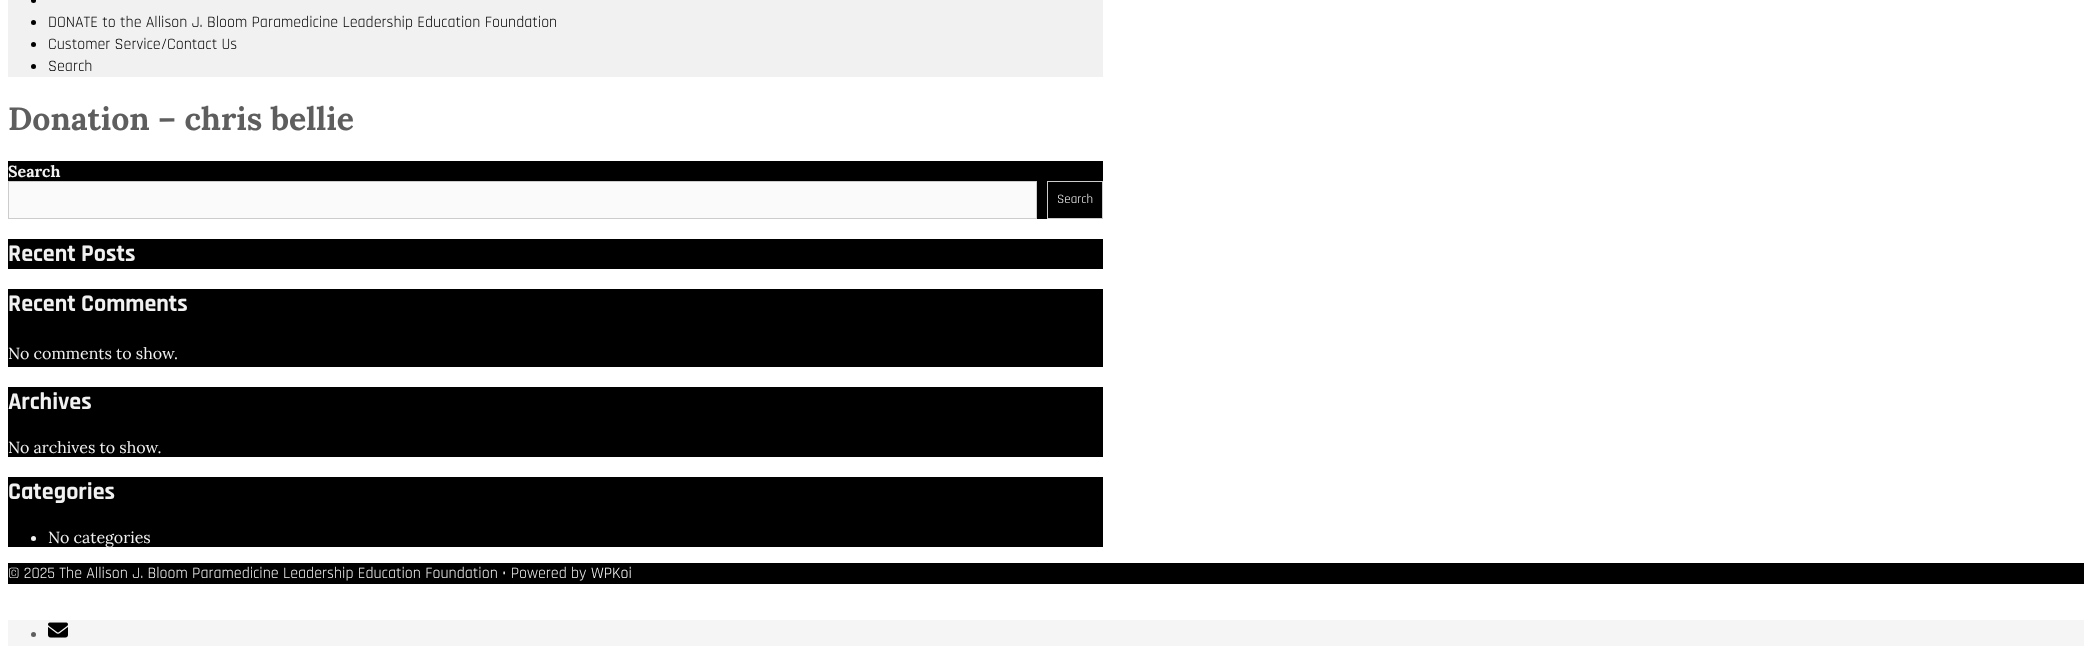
<svg xmlns="http://www.w3.org/2000/svg" width="2092" height="661">
	<rect width="100%" height="100%" fill="#FFFFFF" />
	<rect x="8" y="0" width="1095" height="77" fill="#F1F1F1" />
	<circle cx="33.5" cy="0.5" r="2.5" fill="#000000" />
	<circle cx="33.5" cy="22.5" r="2.5" fill="#000000" />
	<text x="48" y="27" font-family="Rajdhani" font-size="16" fill="#000000">DONATE to the Allison J. Bloom Paramedicine Leadership Education Foundation</text>
	<circle cx="33.5" cy="44.5" r="2.5" fill="#000000" />
	<text x="48" y="49" font-family="Rajdhani" font-size="16" fill="#000000">Customer Service/Contact Us</text>
	<circle cx="33.5" cy="66.5" r="2.5" fill="#000000" />
	<text x="48" y="71" font-family="Rajdhani" font-size="16" fill="#000000">Search</text>
	<text x="8" y="130" font-family="Lora" font-size="32" font-weight="700" fill="#5E5E5E">Donation – chris bellie</text>
	<rect x="8" y="161" width="1095" height="58" fill="#000000" />
	<text x="8" y="177" font-family="Lora" font-size="16" font-weight="700" fill="#F1F1F1">Search</text>
	<rect x="8.5" y="181.5" width="1028" height="37" fill="#FAFAFA" stroke="#CCCCCC" />
	<rect x="1047.5" y="181.5" width="55" height="37" fill="none" stroke="#CCCCCC" />
	<text x="1057" y="203" font-family="Rajdhani" font-size="13" fill="#FFFFFF">Search</text>
	<rect x="8" y="239" width="1095" height="30" fill="#000000" />
	<text x="8" y="261" font-family="Rajdhani" font-size="24" font-weight="700" fill="#F1F1F1">Recent Posts</text>
	<rect x="8" y="289" width="1095" height="78" fill="#000000" />
	<text x="8" y="311" font-family="Rajdhani" font-size="24" font-weight="700" fill="#F1F1F1">Recent Comments</text>
	<text x="8" y="359" font-family="Lora" font-size="16" fill="#F1F1F1">No comments to show.</text>
	<rect x="8" y="387" width="1095" height="70" fill="#000000" />
	<text x="8" y="409" font-family="Rajdhani" font-size="24" font-weight="700" fill="#F1F1F1">Archives</text>
	<text x="8" y="453" font-family="Lora" font-size="16" fill="#F1F1F1">No archives to show.</text>
	<rect x="8" y="477" width="1095" height="70" fill="#000000" />
	<text x="8" y="499" font-family="Rajdhani" font-size="24" font-weight="700" fill="#F1F1F1">Categories</text>
	<circle cx="33.5" cy="538.5" r="2.5" fill="#F1F1F1" />
	<text x="48" y="543" font-family="Lora" font-size="16" fill="#F1F1F1">No categories</text>
	<rect x="8" y="563" width="2076" height="21" fill="#000000" />
	<text x="8" y="578" font-family="Rajdhani" font-size="16" fill="#F1F1F1">© 2025 The Allison J. Bloom Paramedicine Leadership Education Foundation • Powered by</text>
	<text x="591" y="578" font-family="Rajdhani" font-size="16" fill="#FFFFFF">WPKoi</text>
	<rect x="8" y="620" width="2076" height="26" fill="#F5F5F5" />
	<circle cx="33.5" cy="634.5" r="2.5" fill="#5E5E5E" />
	<image x="48" y="622" width="20" height="16" href="assets/img1.png" />
</svg>
